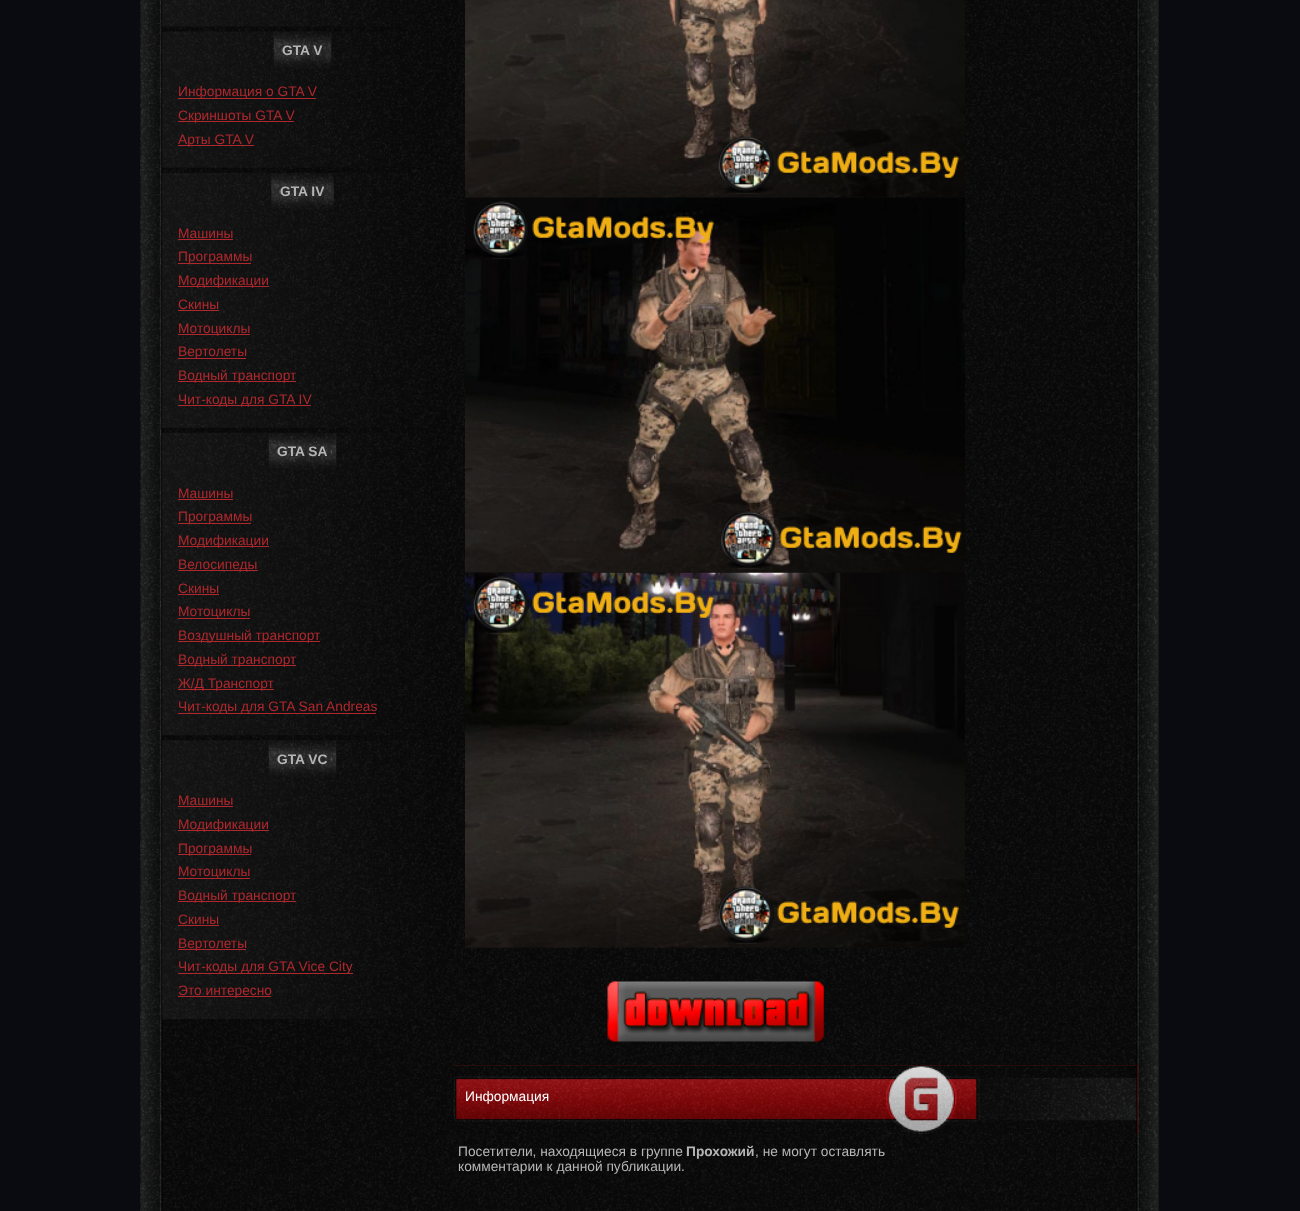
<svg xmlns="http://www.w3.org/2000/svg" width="1300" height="1211">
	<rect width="100%" height="100%" fill="#0A0B10" />
	<image x="140" y="0" width="1019" height="1211" href="assets/img1.png" />
	<image x="161" y="0" width="267" height="27" href="assets/img2.png" />
	<image x="161" y="31" width="267" height="137" href="assets/img3.png" />
	<image x="273" y="31" width="59" height="38" href="assets/img4.png" />
	<text x="282" y="55" font-family="Liberation Sans" font-size="13.75" font-weight="700" fill="#B5B5B5">GTA V</text>
	<rect x="178" y="98" width="138" height="1" fill="#AF282E" />
	<text x="178" y="96" font-family="Liberation Sans" font-size="13.75" fill="#AF282E">Информация о GTA V</text>
	<rect x="178" y="121" width="116" height="1" fill="#AF282E" />
	<text x="178" y="120" font-family="Liberation Sans" font-size="13.75" fill="#AF282E">Скриншоты GTA V</text>
	<rect x="178" y="145" width="76" height="1" fill="#AF282E" />
	<text x="178" y="144" font-family="Liberation Sans" font-size="13.75" fill="#AF282E">Арты GTA V</text>
	<image x="161" y="172" width="267" height="256" href="assets/img5.png" />
	<image x="271" y="173" width="63" height="37" href="assets/img6.png" />
	<text x="280" y="196" font-family="Liberation Sans" font-size="13.75" font-weight="700" fill="#B5B5B5">GTA IV</text>
	<text x="178" y="238" font-family="Liberation Sans" font-size="13.75" fill="#AF282E">Машины</text>
	<rect x="178" y="239" width="55" height="1" fill="#AF282E" />
	<rect x="178" y="263" width="73" height="1" fill="#AF282E" />
	<text x="178" y="261" font-family="Liberation Sans" font-size="13.75" fill="#AF282E">Программы</text>
	<rect x="178" y="286" width="91" height="1" fill="#AF282E" />
	<g font-family="Liberation Sans" font-size="13.75" fill="#AF282E">
		<text x="178" y="285">Модификации</text>
		<text x="178" y="309">Скины</text>
	</g>
	<rect x="178" y="310" width="41" height="1" fill="#AF282E" />
	<rect x="178" y="334" width="72" height="1" fill="#AF282E" />
	<text x="178" y="333" font-family="Liberation Sans" font-size="13.75" fill="#AF282E">Мотоциклы</text>
	<rect x="178" y="358" width="68" height="1" fill="#AF282E" />
	<text x="178" y="356" font-family="Liberation Sans" font-size="13.75" fill="#AF282E">Вертолеты</text>
	<rect x="178" y="381" width="118" height="1" fill="#AF282E" />
	<text x="178" y="380" font-family="Liberation Sans" font-size="13.75" fill="#AF282E">Водный транспорт</text>
	<rect x="178" y="405" width="133" height="1" fill="#AF282E" />
	<text x="178" y="404" font-family="Liberation Sans" font-size="13.75" fill="#AF282E">Чит-коды для GTA IV</text>
	<image x="161" y="432" width="267" height="304" href="assets/img7.png" />
	<image x="268" y="433" width="69" height="37" href="assets/img8.png" />
	<text x="277" y="456" font-family="Liberation Sans" font-size="13.75" font-weight="700" fill="#B5B5B5">GTA SA</text>
	<text x="178" y="498" font-family="Liberation Sans" font-size="13.75" fill="#AF282E">Машины</text>
	<rect x="178" y="499" width="55" height="1" fill="#AF282E" />
	<rect x="178" y="523" width="73" height="1" fill="#AF282E" />
	<text x="178" y="521" font-family="Liberation Sans" font-size="13.75" fill="#AF282E">Программы</text>
	<rect x="178" y="546" width="91" height="1" fill="#AF282E" />
	<text x="178" y="545" font-family="Liberation Sans" font-size="13.75" fill="#AF282E">Модификации</text>
	<rect x="178" y="570" width="80" height="1" fill="#AF282E" />
	<g font-family="Liberation Sans" font-size="13.75" fill="#AF282E">
		<text x="178" y="569">Велосипеды</text>
		<text x="178" y="593">Скины</text>
	</g>
	<rect x="178" y="594" width="41" height="1" fill="#AF282E" />
	<rect x="178" y="618" width="72" height="1" fill="#AF282E" />
	<text x="178" y="616" font-family="Liberation Sans" font-size="13.75" fill="#AF282E">Мотоциклы</text>
	<rect x="178" y="641" width="142" height="1" fill="#AF282E" />
	<text x="178" y="640" font-family="Liberation Sans" font-size="13.75" fill="#AF282E">Воздушный транспорт</text>
	<rect x="178" y="665" width="118" height="1" fill="#AF282E" />
	<text x="178" y="664" font-family="Liberation Sans" font-size="13.75" fill="#AF282E">Водный транспорт</text>
	<rect x="178" y="689" width="96" height="1" fill="#AF282E" />
	<text x="178" y="688" font-family="Liberation Sans" font-size="13.75" fill="#AF282E">Ж/Д Транспорт</text>
	<rect x="178" y="713" width="198" height="1" fill="#AF282E" />
	<text x="178" y="711" font-family="Liberation Sans" font-size="13.75" fill="#AF282E">Чит-коды для GTA San Andreas</text>
	<image x="161" y="740" width="267" height="279" href="assets/img9.png" />
	<image x="268" y="740" width="69" height="38" href="assets/img10.png" />
	<text x="277" y="764" font-family="Liberation Sans" font-size="13.75" font-weight="700" fill="#B5B5B5">GTA VC</text>
	<text x="178" y="805" font-family="Liberation Sans" font-size="13.75" fill="#AF282E">Машины</text>
	<rect x="178" y="806" width="55" height="1" fill="#AF282E" />
	<rect x="178" y="830" width="91" height="1" fill="#AF282E" />
	<text x="178" y="829" font-family="Liberation Sans" font-size="13.75" fill="#AF282E">Модификации</text>
	<rect x="178" y="854" width="73" height="1" fill="#AF282E" />
	<text x="178" y="853" font-family="Liberation Sans" font-size="13.75" fill="#AF282E">Программы</text>
	<rect x="178" y="878" width="72" height="1" fill="#AF282E" />
	<text x="178" y="876" font-family="Liberation Sans" font-size="13.75" fill="#AF282E">Мотоциклы</text>
	<rect x="178" y="901" width="118" height="1" fill="#AF282E" />
	<g font-family="Liberation Sans" font-size="13.75" fill="#AF282E">
		<text x="178" y="900">Водный транспорт</text>
		<text x="178" y="924">Скины</text>
	</g>
	<rect x="178" y="925" width="41" height="1" fill="#AF282E" />
	<rect x="178" y="949" width="68" height="1" fill="#AF282E" />
	<text x="178" y="948" font-family="Liberation Sans" font-size="13.75" fill="#AF282E">Вертолеты</text>
	<rect x="178" y="973" width="175" height="1" fill="#AF282E" />
	<text x="178" y="971" font-family="Liberation Sans" font-size="13.75" fill="#AF282E">Чит-коды для GTA Vice City</text>
	<rect x="178" y="996" width="93" height="1" fill="#AF282E" />
	<text x="178" y="995" font-family="Liberation Sans" font-size="13.75" fill="#AF282E">Это интересно</text>
	<image x="465" y="0" width="500" height="198" href="assets/img11.png" />
	<image x="465" y="197" width="500" height="376" href="assets/img12.png" />
	<image x="465" y="572" width="500" height="376" href="assets/img13.png" />
	<image x="607" y="981" width="217" height="61" href="assets/img14.png" />
	<rect x="453" y="1065" width="685" height="69" fill="#810C0F" />
	<image x="452" y="1065" width="686" height="69" href="assets/img15.png" />
	<text x="465" y="1101" font-family="Liberation Sans" font-size="13.75" fill="#FFFFFF">Информация</text>
	<text x="458" y="1156" font-family="Liberation Sans" font-size="13.75" fill="#B5B5B5">Посетители, находящиеся в группе</text>
	<text x="686" y="1156" font-family="Liberation Sans" font-size="13.75" font-weight="700" fill="#B5B5B5">Прохожий</text>
	<g font-family="Liberation Sans" font-size="13.75" fill="#B5B5B5">
		<text x="755" y="1156">, не могут оставлять</text>
		<text x="458" y="1171">комментарии к данной публикации.</text>
	</g>
</svg>
